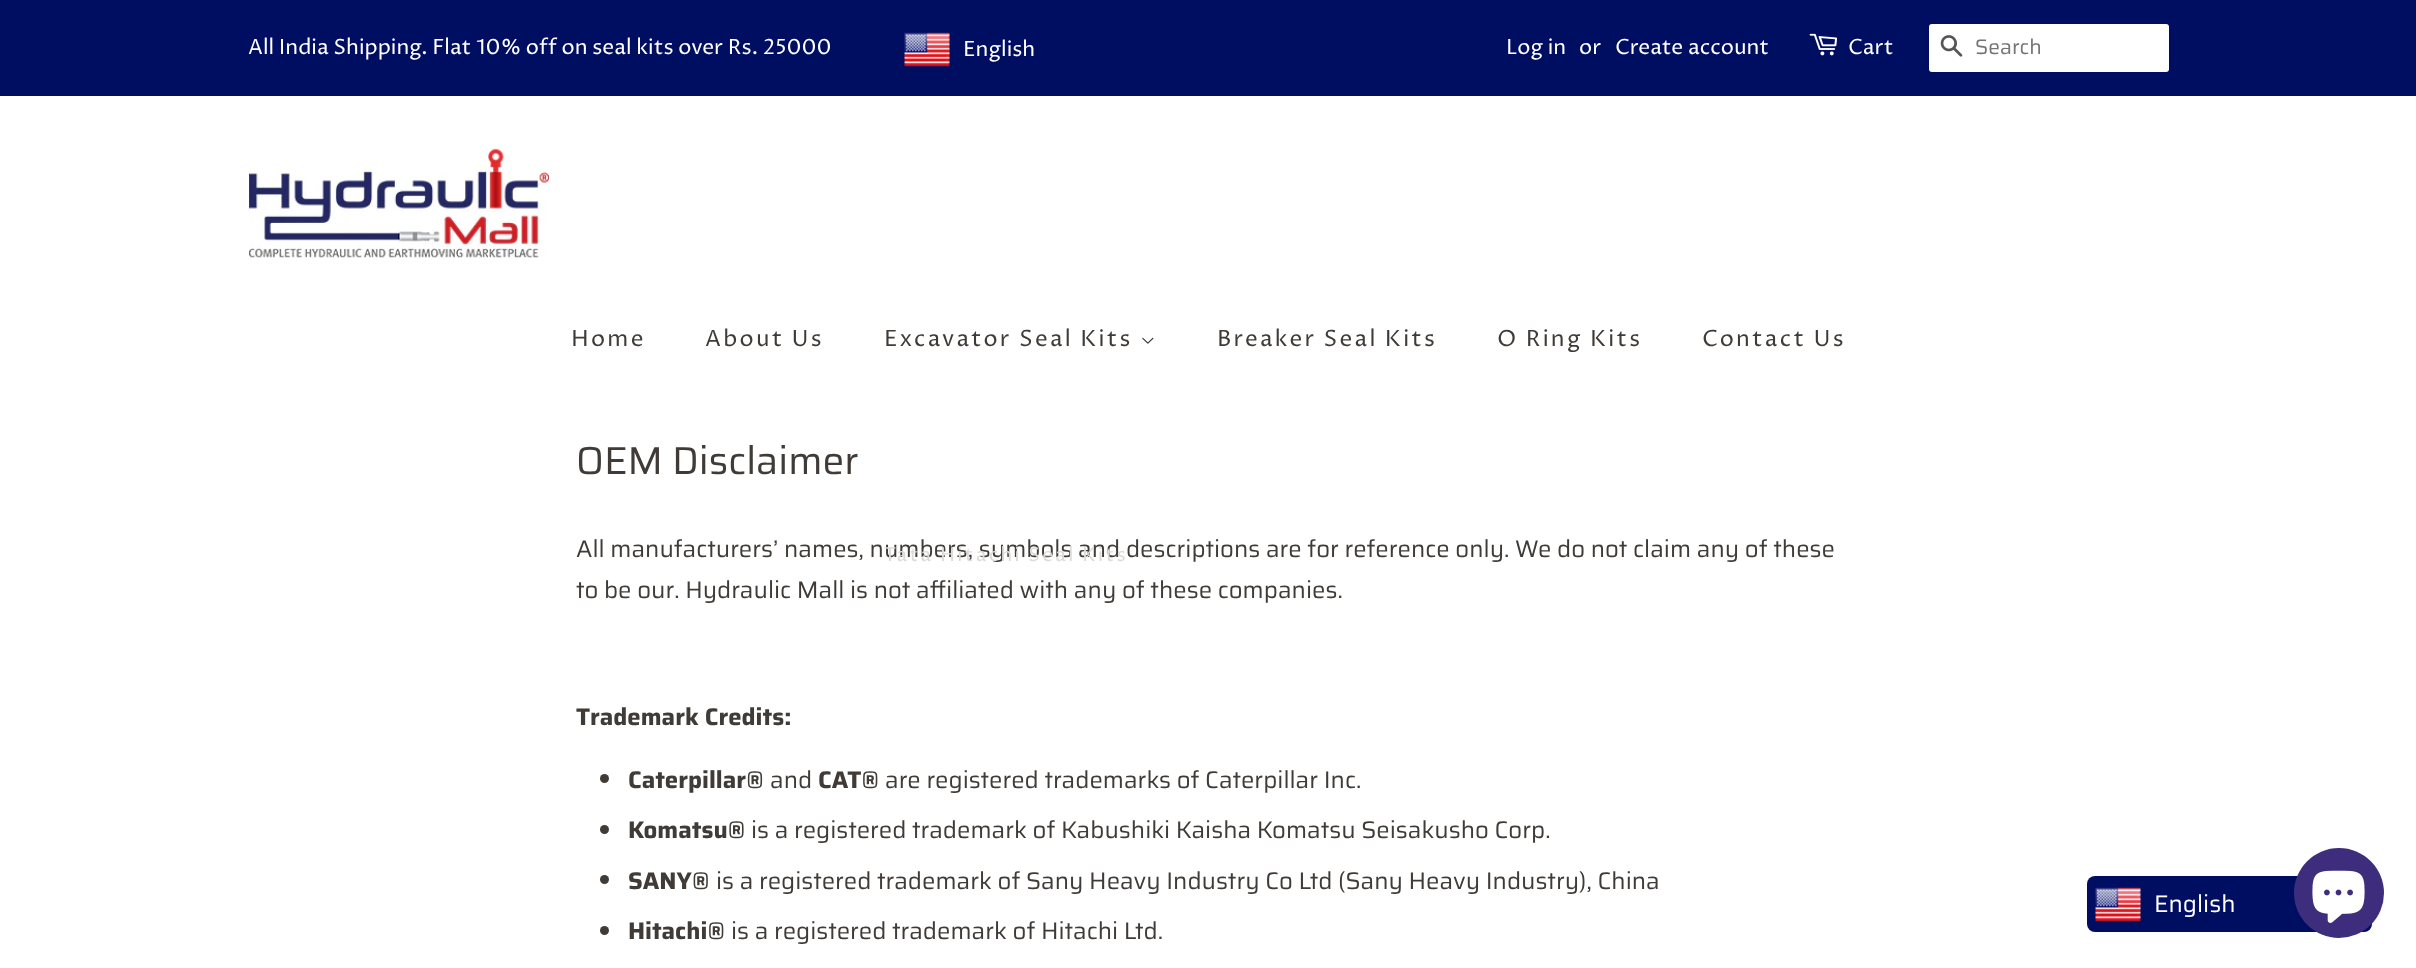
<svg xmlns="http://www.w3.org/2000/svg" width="2416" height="968">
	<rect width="100%" height="100%" fill="#FFFFFF" />
	<rect x="0" y="0" width="2416" height="96" fill="#000E62" />
	<text x="248" y="54" font-family="Proza Libre" font-size="21" fill="#FFFFFF">All India Shipping. Flat 10% off on seal kits over Rs. 25000</text>
	<image x="904" y="32" width="46" height="35" href="assets/img1.png" />
	<g font-family="Proza Libre" font-size="21" fill="#FFFFFF">
		<text x="963" y="56">English</text>
		<text x="1506" y="54">Log in</text>
		<text x="1579" y="54">or</text>
		<text x="1615" y="54">Create account</text>
	</g>
	<image x="1809" y="33" width="29" height="23" href="assets/img2.png" />
	<text x="1848" y="54" font-family="Proza Libre" font-size="21" fill="#FFFFFF">Cart</text>
	<rect x="1929" y="24" width="240" height="48" rx="3" fill="#FFFFFF" />
	<image x="1940" y="35" width="23" height="22" href="assets/img3.png" />
	<text x="1975" y="54" font-family="Saira" font-size="21" fill="#757575">Search</text>
	<image x="249" y="148" width="300" height="110" href="assets/img4.png" />
	<g font-family="Proza Libre" font-size="22.5" letter-spacing="2.25" fill="#403B37">
		<text x="571" y="346">Home</text>
		<text x="705" y="346">About Us</text>
		<text x="884" y="346">Excavator Seal Kits</text>
	</g>
	<image x="1142" y="337" width="12" height="7" href="assets/img5.png" />
	<text x="576" y="557" font-family="Saira" font-size="24" fill="#403B37">All manufacturers’ names, numbers, symbols and descriptions are for reference only. We do not claim any of these</text>
	<text x="884" y="561" font-family="Proza Libre" font-size="19.1" letter-spacing="2.25" fill="#DCDBDA">Tata Hitachi Seal Kits</text>
	<g font-family="Proza Libre" font-size="22.5" letter-spacing="2.25" fill="#403B37">
		<text x="1217" y="346">Breaker Seal Kits</text>
		<text x="1497" y="346">O Ring Kits</text>
		<text x="1702" y="346">Contact Us</text>
	</g>
	<text x="576" y="474" font-family="Saira" font-size="39" fill="#403B37">OEM Disclaimer</text>
	<text x="576" y="598" font-family="Saira" font-size="24" fill="#403B37">to be our. Hydraulic Mall is not affiliated with any of these companies.</text>
	<text x="576" y="725" font-family="Saira" font-size="24" font-weight="700" fill="#403B37">Trademark Credits:</text>
	<circle cx="604.5" cy="778.5" r="4.5" fill="#403B37" />
	<text x="628" y="788" font-family="Saira" font-size="24" font-weight="700" fill="#403B37">Caterpillar®</text>
	<text x="770" y="788" font-family="Saira" font-size="24" fill="#403B37">and</text>
	<text x="818" y="788" font-family="Saira" font-size="24" font-weight="700" fill="#403B37">CAT®</text>
	<text x="885" y="788" font-family="Saira" font-size="24" fill="#403B37">are registered trademarks of Caterpillar Inc.</text>
	<circle cx="604.5" cy="829.5" r="4.5" fill="#403B37" />
	<text x="628" y="838" font-family="Saira" font-size="24" font-weight="700" fill="#403B37">Komatsu®</text>
	<text x="751" y="838" font-family="Saira" font-size="24" fill="#403B37">is a registered trademark of Kabushiki Kaisha Komatsu Seisakusho Corp.</text>
	<circle cx="604.5" cy="879.5" r="4.5" fill="#403B37" />
	<text x="628" y="889" font-family="Saira" font-size="24" font-weight="700" fill="#403B37">SANY®</text>
	<text x="716" y="889" font-family="Saira" font-size="24" fill="#403B37">is a registered trademark of Sany Heavy Industry Co Ltd (Sany Heavy Industry), China</text>
	<circle cx="604.5" cy="930.5" r="4.5" fill="#403B37" />
	<text x="628" y="939" font-family="Saira" font-size="24" font-weight="700" fill="#403B37">Hitachi®</text>
	<text x="731" y="939" font-family="Saira" font-size="24" fill="#403B37">is a registered trademark of Hitachi Ltd.</text>
	<rect x="2087" y="876" width="285" height="56" rx="8" fill="#000E62" />
	<image x="2095" y="887" width="46" height="35" href="assets/img1.png" />
	<text x="2154" y="912" font-family="Saira" font-size="24" fill="#FFFFFF">English</text>
	<circle cx="2339" cy="893" r="45" fill="#3D2D7C" />
	<image x="2312" y="870" width="53" height="53" href="assets/img6.png" />
</svg>
